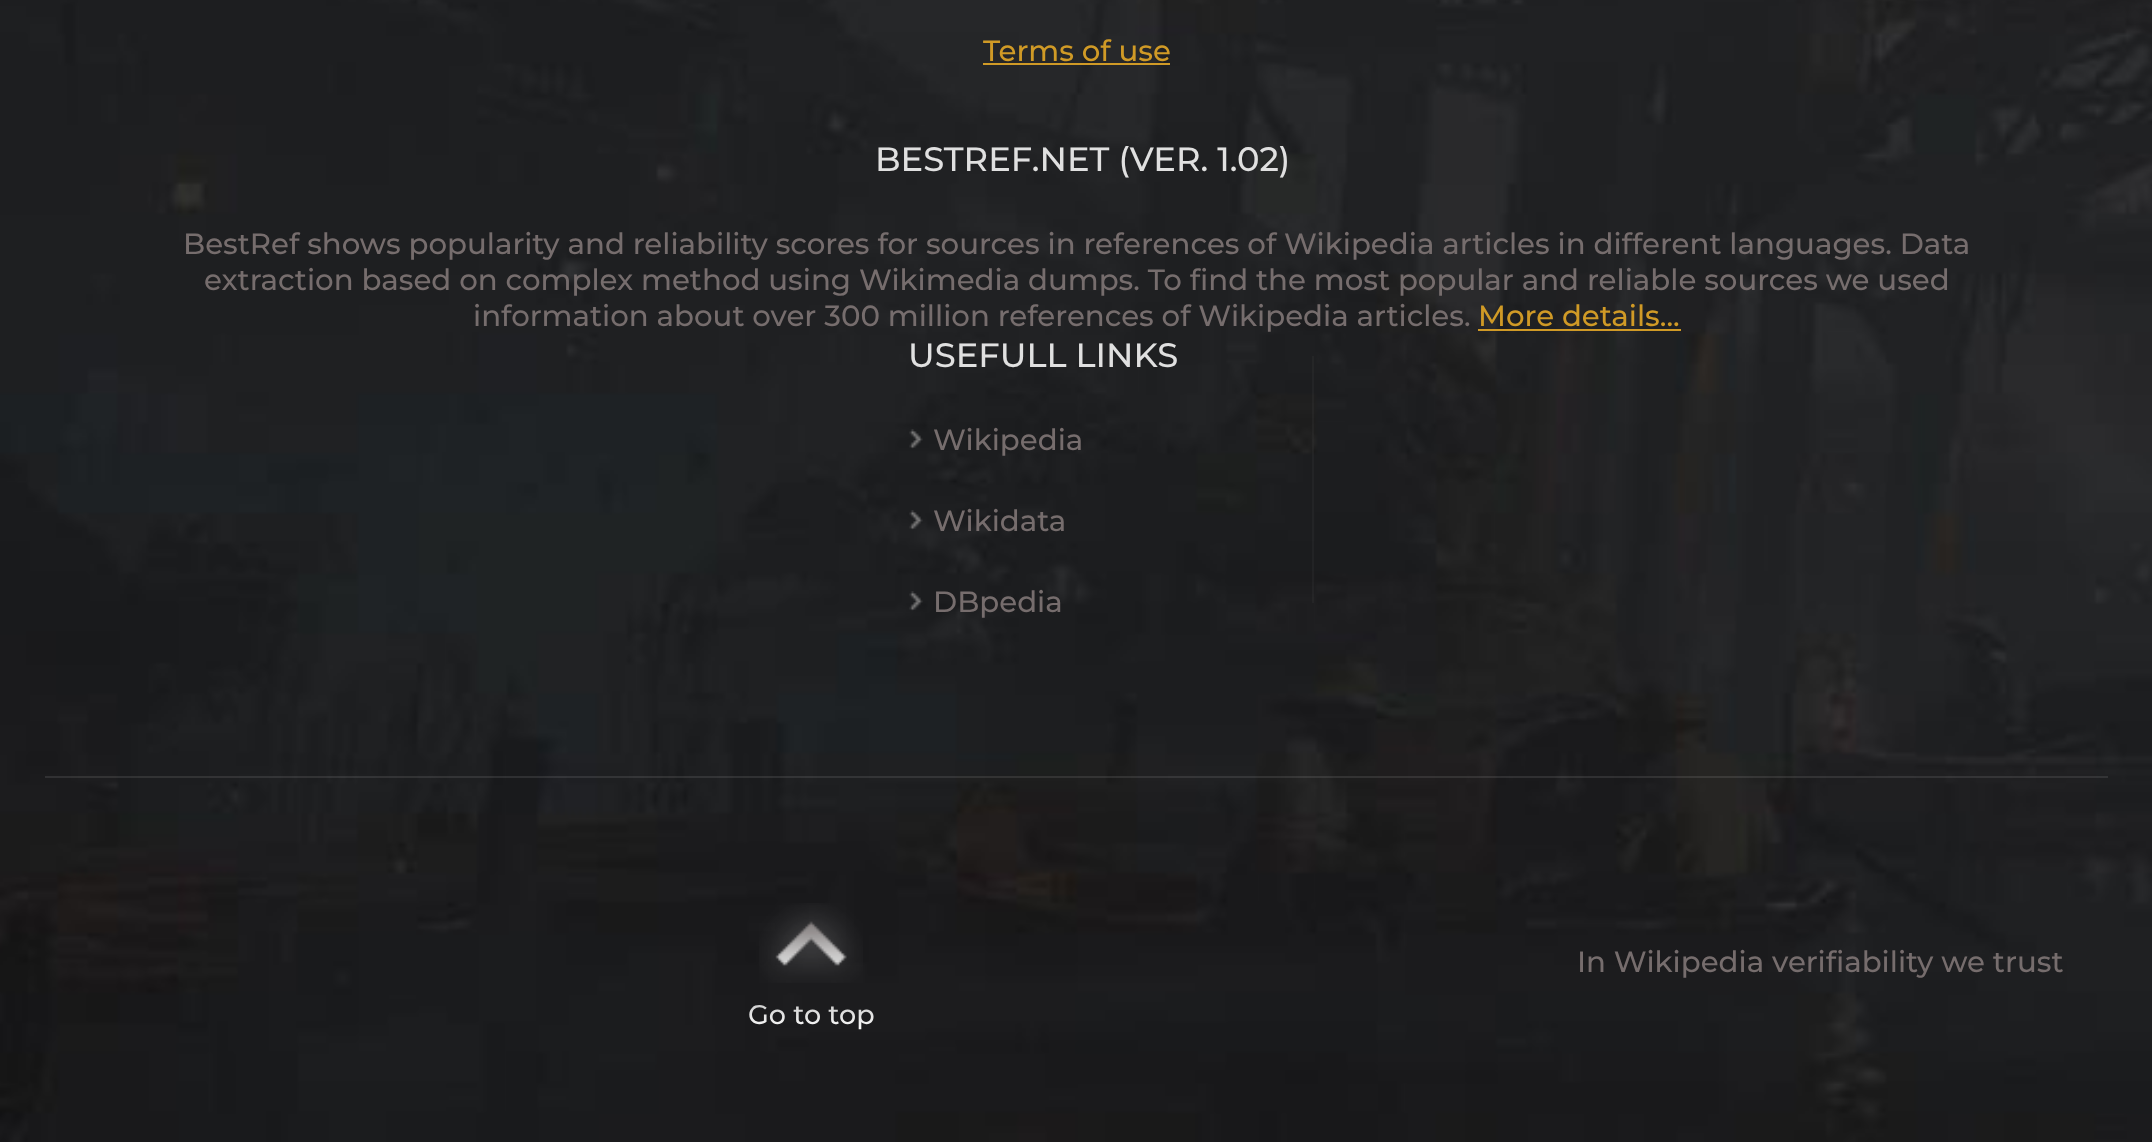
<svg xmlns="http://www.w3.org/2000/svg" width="2152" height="1142">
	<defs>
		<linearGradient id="g1" gradientUnits="userSpaceOnUse" x1="811" y1="891" x2="811" y2="1031"><stop offset="0" stop-color="#000000" /><stop offset="1" stop-color="#FFFFFF" /></linearGradient>
	</defs>
	<rect width="100%" height="100%" fill="#FFFFFF" />
	<image x="0" y="0" width="2152" height="1142" href="assets/img1.png" />
	<rect x="45" y="776" width="2063" height="2" fill="#F4F4F4" fill-opacity="0.1" />
	<text x="983" y="61" font-family="Montserrat" font-size="29.25" font-weight="500" fill="#D09A26">Terms of use</text>
	<rect x="983" y="63" width="187" height="2" fill="#D09A26" />
	<text x="875" y="171" font-family="Montserrat" font-size="33.75" font-weight="500" fill="#E0E0E0">BESTREF.NET (VER. 1.02)</text>
	<g font-family="Montserrat" font-size="29.25" font-weight="500" fill="#766D6D">
		<text x="183" y="254">BestRef shows popularity and reliability scores for sources in references of Wikipedia articles in different languages. Data</text>
		<text x="204" y="290">extraction based on complex method using Wikimedia dumps. To find the most popular and reliable sources we used</text>
		<text x="473" y="326">information about over 300 million references of Wikipedia articles.</text>
	</g>
	<text x="1478" y="326" font-family="Montserrat" font-size="29.25" font-weight="500" fill="#D09A26">More details...</text>
	<rect x="1478" y="329" width="203" height="2" fill="#D09A26" />
	<text x="908" y="367" font-family="Montserrat" font-size="33.75" font-weight="500" fill="#E0E0E0">USEFULL LINKS</text>
	<rect x="1312" y="356" width="2" height="247" fill="#FFFFFF" fill-opacity="0.03" />
	<image x="909" y="429" width="14" height="20" href="assets/img2.png" />
	<text x="933" y="450" font-family="Montserrat" font-size="29.25" font-weight="500" fill="#766D6D">Wikipedia</text>
	<image x="909" y="510" width="14" height="20" href="assets/img3.png" />
	<text x="933" y="531" font-family="Montserrat" font-size="29.25" font-weight="500" fill="#766D6D">Wikidata</text>
	<image x="909" y="591" width="14" height="20" href="assets/img4.png" />
	<g font-family="Montserrat" font-size="29.25" font-weight="500" fill="#766D6D">
		<text x="933" y="612">DBpedia</text>
		<text x="1577" y="972">In Wikipedia verifiability we trust</text>
	</g>
	<image x="759" y="903" width="104" height="80" href="assets/img5.png" />
	<text x="748" y="1024" font-family="Montserrat" font-size="27" font-weight="500" fill="url(#g1)">Go to top</text>
</svg>
